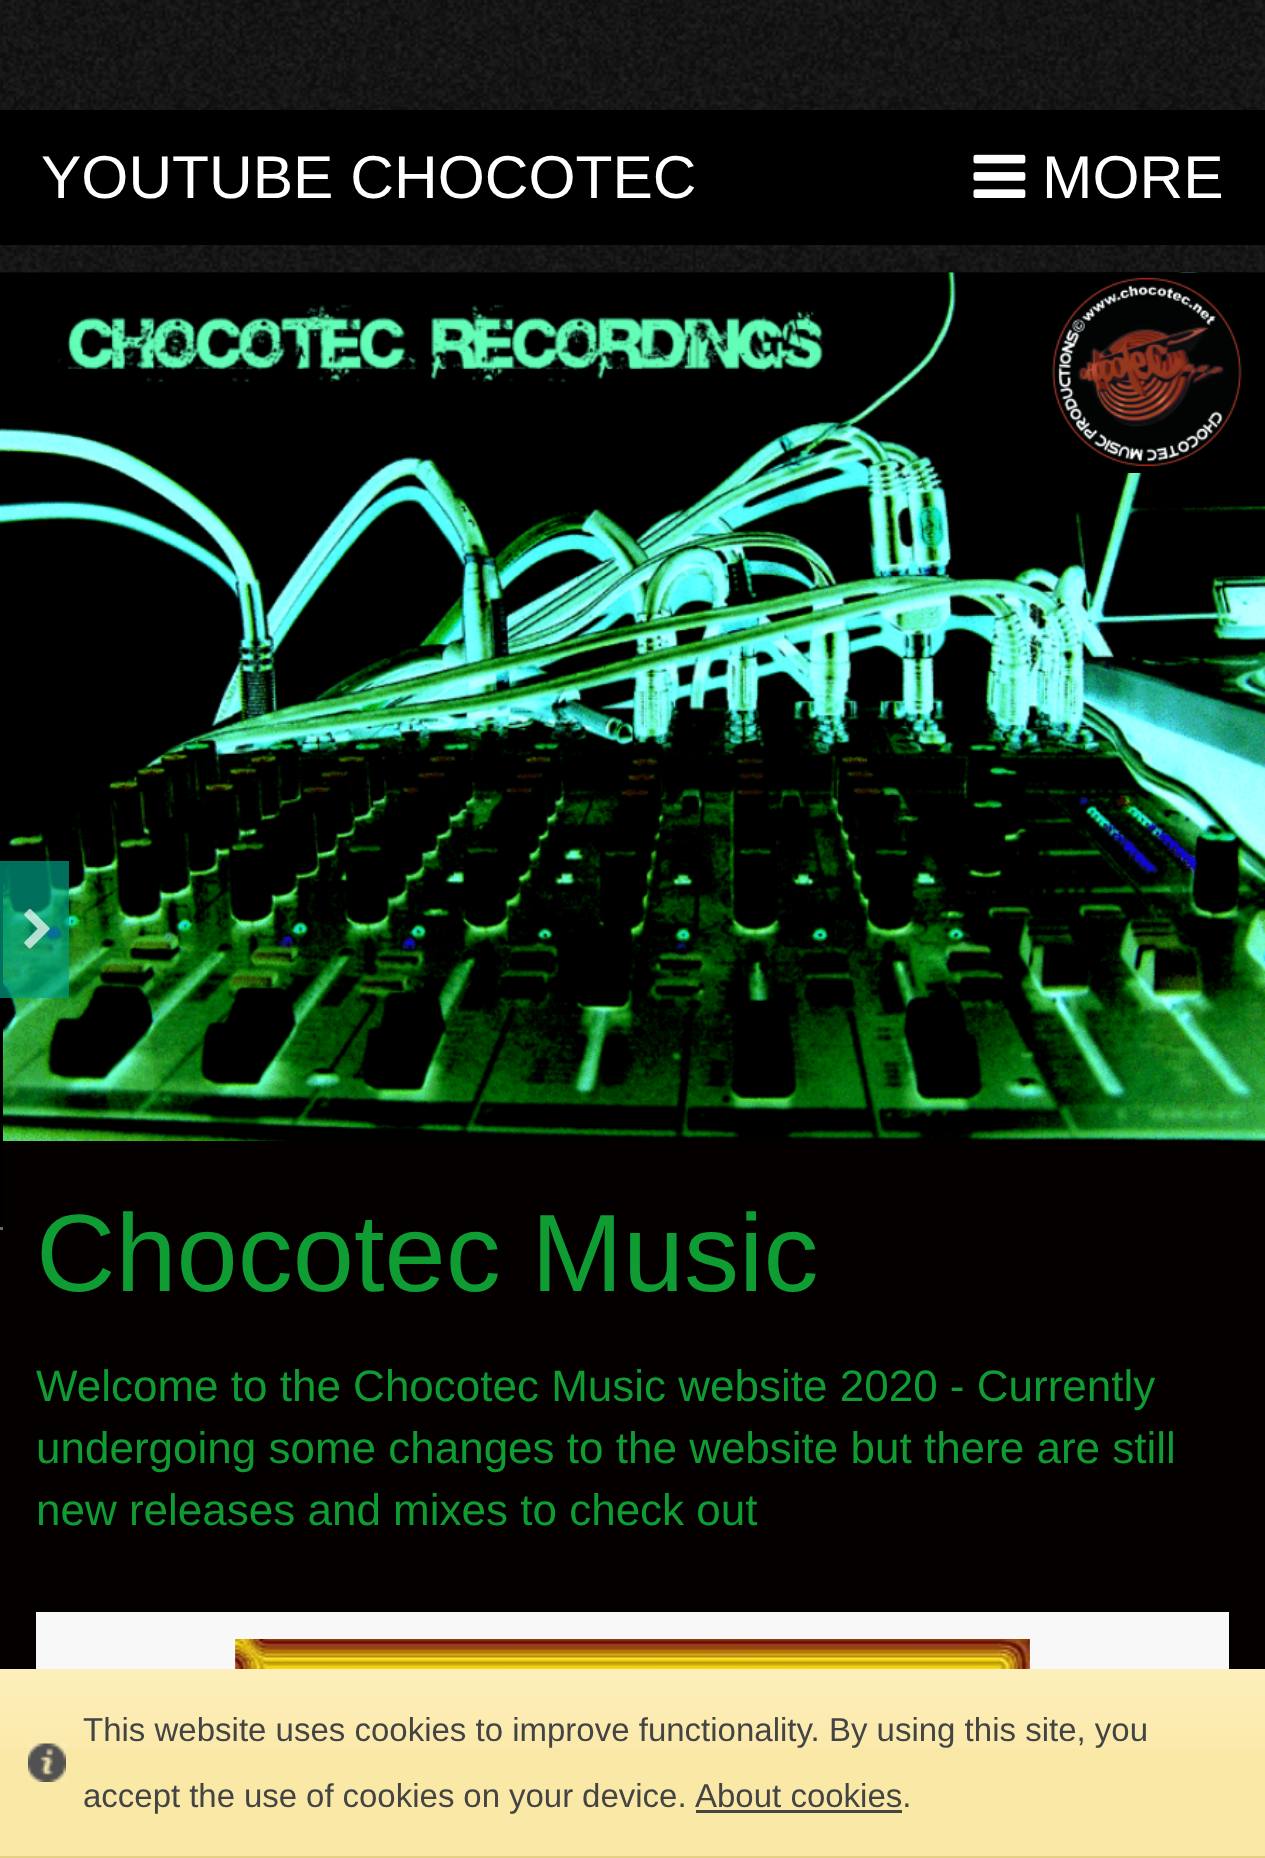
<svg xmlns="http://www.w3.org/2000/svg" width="1265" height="1858">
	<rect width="100%" height="100%" fill="#FFFFFF" />
	<image x="0" y="0" width="1265" height="55" href="assets/img1.png" />
	<image x="0" y="55" width="1265" height="218" href="assets/img2.png" />
	<rect x="0" y="110" width="1265" height="135" fill="#000000" />
	<text x="41" y="198" font-family="Liberation Sans" font-size="60.5" fill="#FFFFFF">YOUTUBE CHOCOTEC</text>
	<image x="973" y="154" width="53" height="44" href="assets/img3.png" />
	<text x="1042" y="198" font-family="Liberation Sans" font-size="60.5" fill="#FFFFFF">MORE</text>
	<image x="0" y="272" width="1265" height="869" href="assets/img4.png" />
	<image x="1048" y="272" width="200" height="201" href="assets/img5.png" />
	<rect x="0" y="1141" width="1265" height="528" fill="#040000" />
	<rect x="0" y="880" width="3" height="349" fill="#000000" />
	<rect x="0" y="1227" width="3" height="3" fill="#696969" />
	<rect x="0" y="861" width="69" height="137" fill="#009F84" fill-opacity="0.7" />
	<image x="24" y="909" width="26" height="40" href="assets/img6.png" />
	<text x="36" y="1291" font-family="Liberation Sans" font-size="110" fill="#0F9C32">Chocotec Music</text>
	<g font-family="Liberation Sans" font-size="44" fill="#0F9C32">
		<text x="36" y="1401">Welcome to the Chocotec Music website 2020 - Currently</text>
		<text x="36" y="1463">undergoing some changes to the website but there are still</text>
		<text x="36" y="1525">new releases and mixes to check out</text>
	</g>
	<rect x="36" y="1612" width="1193" height="57" fill="#F8F8F8" />
	<image x="235" y="1639" width="795" height="30" href="assets/img7.png" />
	<rect x="0" y="1748" width="1265" height="108" fill="#FAE8A6" />
	<image x="0" y="1669" width="1265" height="79" href="assets/img8.png" />
	<rect x="0" y="1856" width="1265" height="2" fill="#E4CE80" />
	<image x="28" y="1743" width="38" height="39" href="assets/img9.png" />
	<g font-family="Liberation Sans" font-size="33" fill="#444444">
		<text x="83" y="1741">This website uses cookies to improve functionality. By using this site, you</text>
		<text x="83" y="1807" word-spacing="-0.25">accept the use of cookies on your device.</text>
		<text x="695" y="1807">About cookies.</text>
	</g>
	<rect x="696" y="1810" width="206" height="3" fill="#444444" />
</svg>
